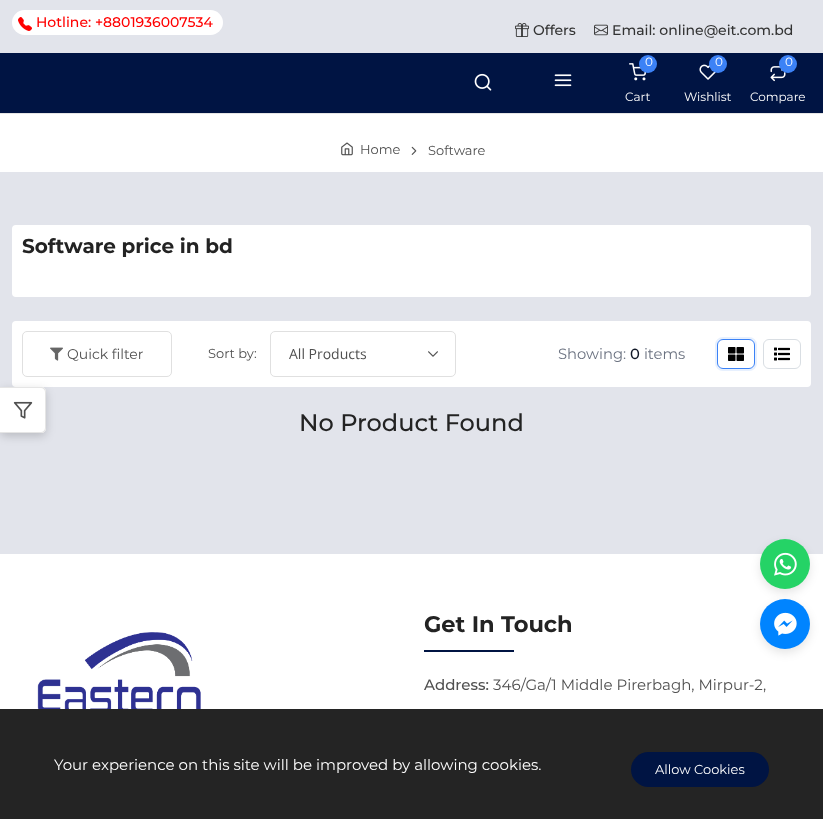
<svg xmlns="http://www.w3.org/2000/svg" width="823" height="819">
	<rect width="100%" height="100%" fill="#E2E4EB" />
	<rect x="12" y="10" width="211" height="25" rx="12.5" fill="#FFFFFF" />
	<image x="18" y="17" width="14" height="14" href="assets/img1.png" />
	<text x="36" y="27" font-family="Montserrat" font-size="14" font-weight="500" fill="#FF0000">Hotline: +8801936007534</text>
	<image x="515" y="23" width="14" height="14" href="assets/img2.png" />
	<text x="533" y="35" font-family="Montserrat" font-size="14" font-weight="500" fill="#333333">Offers</text>
	<image x="594" y="24" width="14" height="12" href="assets/img3.png" />
	<text x="612" y="35" font-family="Montserrat" font-size="14" font-weight="500" fill="#333333">Email: online@eit.com.bd</text>
	<rect x="0" y="53" width="823" height="60" fill="#001443" />
	<image x="474" y="73" width="18" height="18" href="assets/img4.png" />
	<image x="554" y="74" width="18" height="13" href="assets/img5.png" />
	<image x="629" y="63" width="18" height="18" href="assets/img6.png" />
	<circle cx="648" cy="64" r="9" fill="#3C82F6" />
	<g font-family="Montserrat" font-size="12" fill="#FFFFFF">
		<text x="645" y="66">0</text>
		<text x="625" y="101">Cart</text>
	</g>
	<image x="699" y="64" width="17" height="16" href="assets/img7.png" />
	<circle cx="718" cy="64" r="9" fill="#3C82F6" />
	<g font-family="Montserrat" font-size="12" fill="#FFFFFF">
		<text x="715" y="66">0</text>
		<text x="684" y="101">Wishlist</text>
	</g>
	<image x="770" y="66" width="16" height="16" href="assets/img8.png" />
	<circle cx="788" cy="64" r="9" fill="#3C82F6" />
	<g font-family="Montserrat" font-size="12" fill="#FFFFFF">
		<text x="785" y="66">0</text>
		<text x="750" y="101">Compare</text>
	</g>
	<rect x="0" y="114" width="823" height="58" fill="#FFFFFF" />
	<rect x="0" y="113" width="823" height="1" fill="#E5E5E5" />
	<image x="341" y="142" width="12" height="14" href="assets/img9.png" />
	<text x="360" y="154" font-family="Montserrat" font-size="13" fill="#505050">Home</text>
	<image x="411" y="146" width="6" height="9" href="assets/img10.png" />
	<text x="428" y="155" font-family="Montserrat" font-size="13" fill="#505050">Software</text>
	<rect x="12" y="225" width="799" height="72" rx="4" fill="#FFFFFF" />
	<text x="22" y="253" font-family="Montserrat" font-size="20" font-weight="700" fill="#232323">Software price in bd</text>
	<rect x="12" y="321" width="799" height="66" rx="4" fill="#FFFFFF" />
	<rect x="22.5" y="331.5" width="149" height="45" rx="4.5" fill="none" stroke="#E0E0E0" />
	<image x="50" y="347" width="13" height="14" href="assets/img11.png" />
	<text x="67" y="359" font-family="Montserrat" font-size="14" fill="#505050">Quick filter</text>
	<text x="208" y="358" font-family="Montserrat" font-size="13" fill="#505050">Sort by:</text>
	<image x="428" y="351" width="10" height="6" href="assets/img12.png" />
	<rect x="270.5" y="331.5" width="185" height="45" rx="4.5" fill="none" stroke="#E0E0E0" />
	<text x="289" y="359" font-family="Open Sans" font-size="14" fill="#505050">All Products</text>
	<text x="558" y="359" font-family="Montserrat" font-size="14.75" fill="#6B7280">Showing:</text>
	<text x="630" y="359" font-family="Montserrat" font-size="14.75" font-weight="500" fill="#111827">0</text>
	<text x="644" y="359" font-family="Montserrat" font-size="14.75" fill="#6B7280">items</text>
	<rect x="716" y="338" width="40" height="32" rx="7" fill="none" stroke="#E7F0FE" stroke-width="2" />
	<rect x="717.5" y="339.5" width="37" height="29" rx="5.5" fill="#FFFFFF" stroke="#3B82F6" />
	<image x="728" y="347" width="16" height="14" href="assets/img13.png" />
	<rect x="763.5" y="339.5" width="37" height="29" rx="5.5" fill="none" stroke="#D9DEE3" />
	<image x="774" y="347" width="16" height="14" href="assets/img14.png" />
	<rect x="0" y="390" width="46" height="46" rx="5" fill="#000000" fill-opacity="0.18" filter="blur(5px)" />
	<path d="M0 387H41C44 387 46 389 46 392V428C46 431 44 433 41 433H0Z" fill="#FFFFFF" />
	<path d="M0 387H41C44 387 46 389 46 392V428C46 431 44 433 41 433H0ZM0 388H41C43 388 45 390 45 392V428C45 430 43 432 41 432H0Z" fill="#E5E5E5" fill-rule="evenodd" />
	<image x="13" y="401" width="20" height="18" href="assets/img15.png" />
	<text x="299" y="431" font-family="Montserrat" font-size="24" font-weight="500" fill="#232323">No Product Found</text>
	<rect x="0" y="554" width="823" height="155" fill="#FFFFFF" />
	<rect x="760" y="543" width="50" height="50" rx="25" fill="#000000" fill-opacity="0.1" filter="blur(5px)" />
	<circle cx="785" cy="564" r="25" fill="#25D366" />
	<image x="774" y="552" width="23" height="24" href="assets/img16.png" />
	<rect x="760" y="603" width="50" height="50" rx="25" fill="#000000" fill-opacity="0.1" filter="blur(5px)" />
	<circle cx="785" cy="624" r="25" fill="#0084FF" />
	<image x="774" y="612" width="23" height="24" href="assets/img17.png" />
	<image x="37" y="632" width="164" height="77" href="assets/img18.png" />
	<text x="424" y="632" font-family="Montserrat" font-size="22.5" font-weight="700" fill="#232323">Get In Touch</text>
	<rect x="424" y="650" width="90" height="2" fill="#001443" />
	<text x="424" y="690" font-family="Montserrat" font-size="15" font-weight="500" fill="#505050">Address:</text>
	<text x="493" y="690" font-family="Montserrat" font-size="15" fill="#505050">346/Ga/1 Middle Pirerbagh, Mirpur-2,</text>
	<rect x="0" y="709" width="823" height="110" fill="#242424" />
	<text x="54" y="770" font-family="Montserrat" font-size="15" fill="#FFFFFF">Your experience on this site will be improved by allowing cookies.</text>
	<rect x="631" y="752" width="138" height="35" rx="17.5" fill="#001443" />
	<text x="655" y="774" font-family="Montserrat" font-size="13" fill="#FFFFFF">Allow Cookies</text>
</svg>
